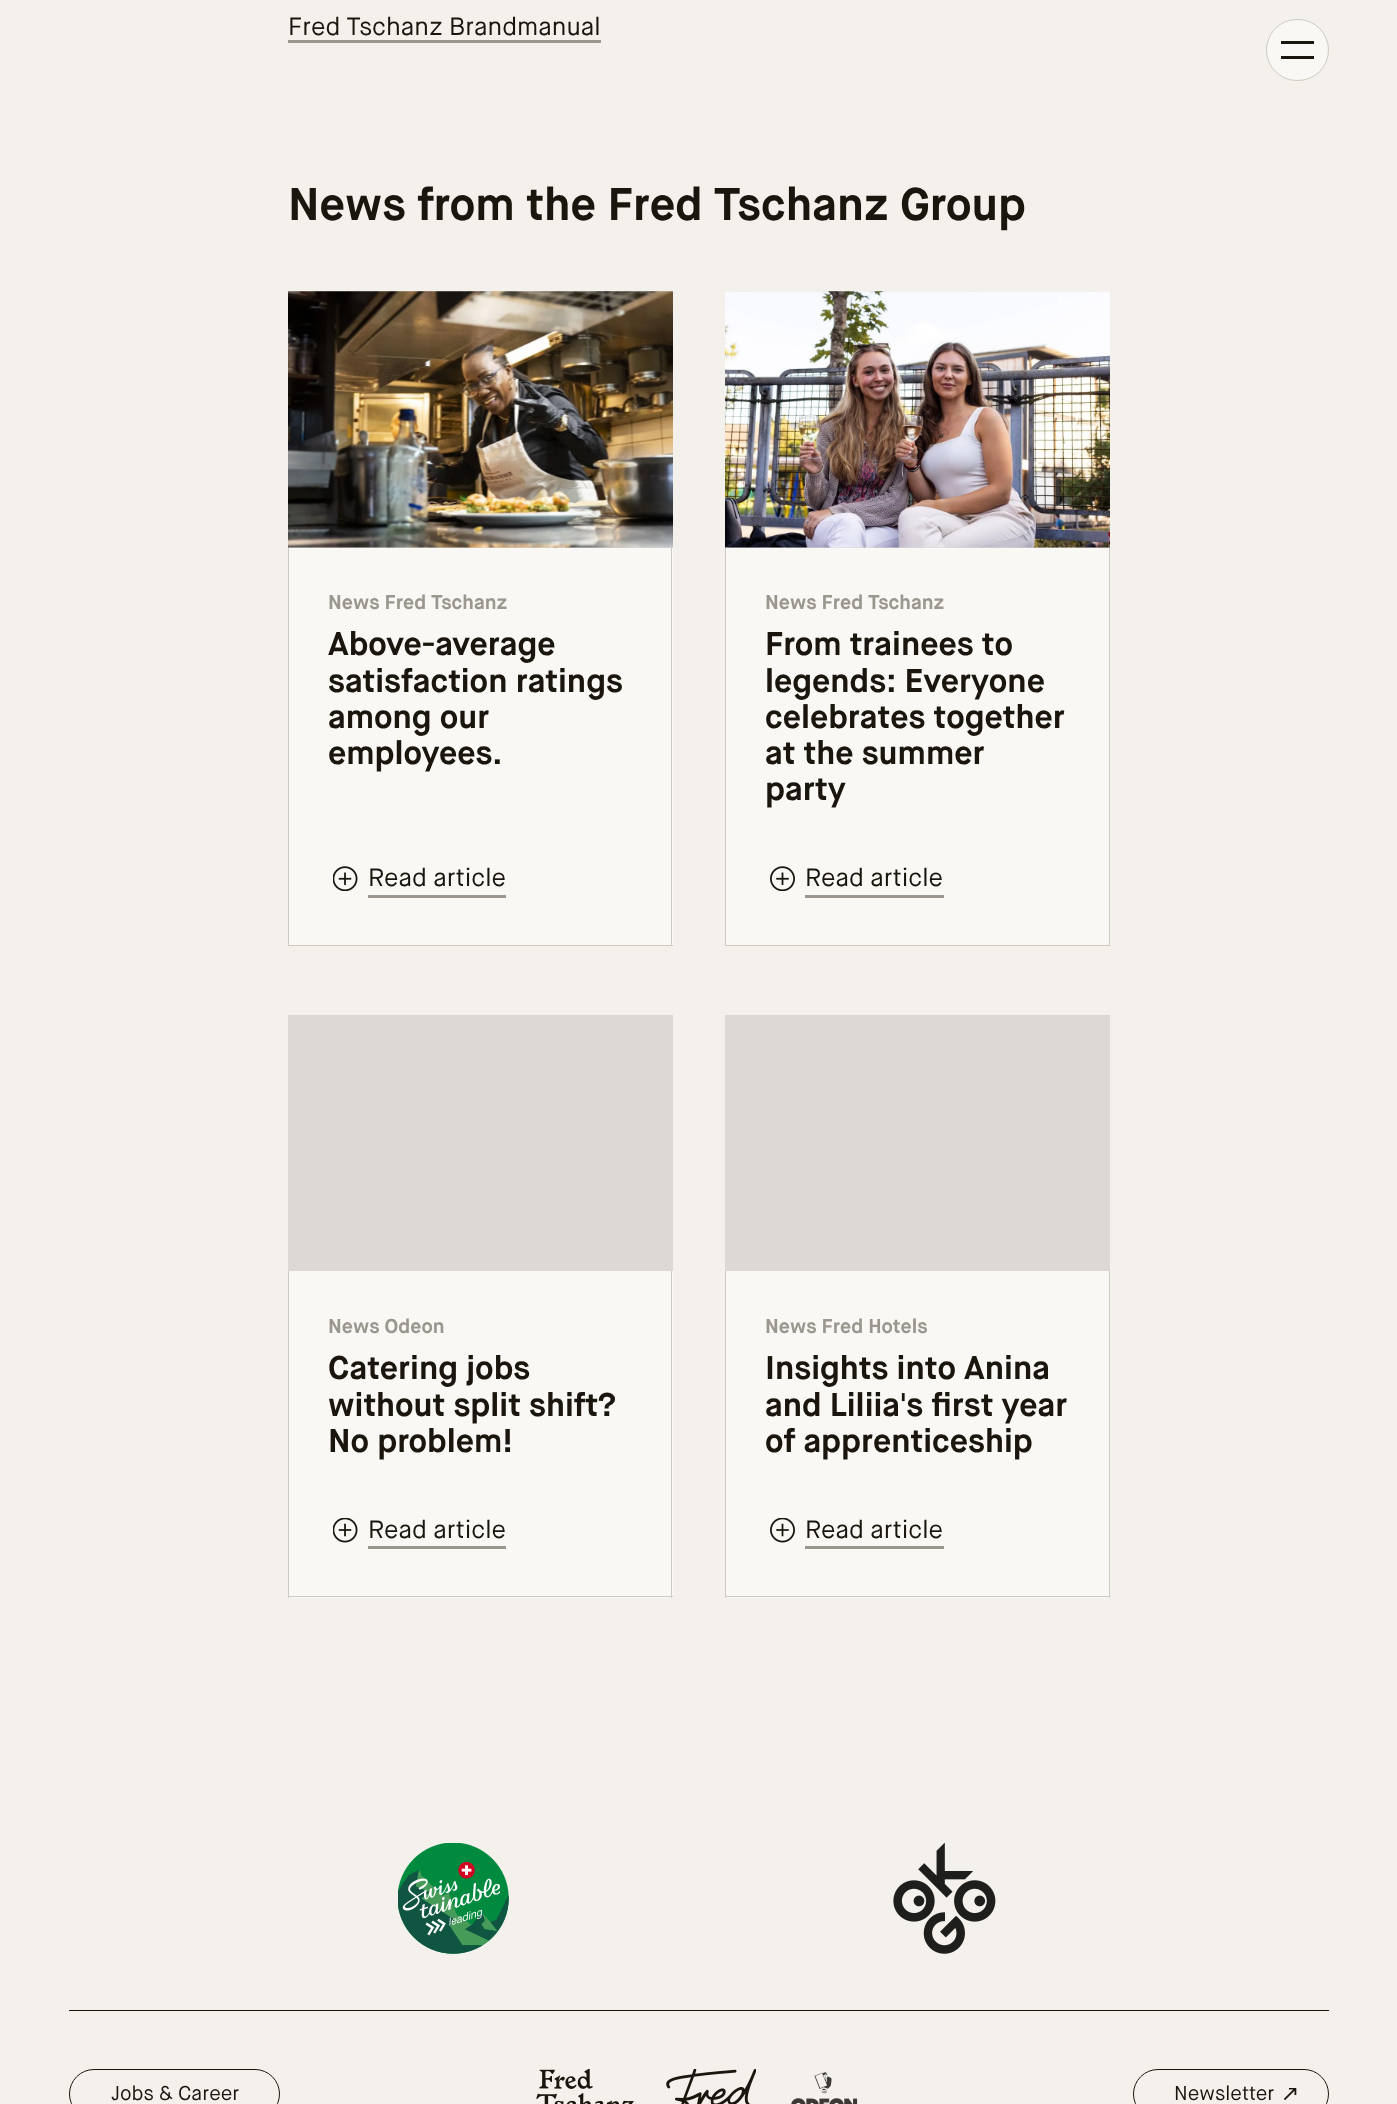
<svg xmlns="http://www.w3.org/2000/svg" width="1397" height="2104">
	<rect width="100%" height="100%" fill="#F4F1EC" />
	<text x="288" y="35" font-family="Maison Neue" font-size="25" fill="#1A160D">Fred Tschanz Brandmanual</text>
	<rect x="288" y="40" width="313" height="3" fill="#9B978F" />
	<text x="288" y="220" font-family="Maison Neue" font-size="45.75" font-weight="700" fill="#1A160D">News from the Fred Tschanz Group</text>
	<rect x="288" y="291" width="385" height="257" fill="#DCD9D4" />
	<image x="288" y="291" width="385" height="257" href="assets/img1.png" />
	<rect x="289" y="548" width="384" height="397" fill="#F9F8F5" />
	<rect x="671" y="548" width="1" height="398" fill="#CFCAC1" />
	<rect x="288" y="945" width="385" height="1" fill="#CFCAC1" />
	<rect x="288" y="548" width="1" height="398" fill="#CFCAC1" />
	<text x="328" y="609" font-family="Maison Neue" font-size="20" font-weight="700" fill="#9B978F">News Fred Tschanz</text>
	<g font-family="Maison Neue" font-size="32.75" font-weight="700" fill="#1A160D">
		<text x="328" y="655">Above-average</text>
		<text x="328" y="692">satisfaction ratings</text>
		<text x="328" y="728">among our</text>
		<text x="328" y="764">employees.</text>
	</g>
	<rect x="368" y="895" width="138" height="3" fill="#9B978F" />
	<image x="333" y="866" width="25" height="25" href="assets/img2.png" />
	<text x="368" y="886" font-family="Maison Neue" font-size="25" fill="#1A160D">Read article</text>
	<rect x="725" y="291" width="385" height="257" fill="#DCD9D4" />
	<image x="725" y="291" width="385" height="257" href="assets/img3.png" />
	<rect x="726" y="548" width="383" height="397" fill="#F9F8F5" />
	<rect x="1109" y="548" width="1" height="398" fill="#CFCAC1" />
	<rect x="725" y="945" width="385" height="1" fill="#CFCAC1" />
	<rect x="725" y="548" width="1" height="398" fill="#CFCAC1" />
	<text x="765" y="609" font-family="Maison Neue" font-size="20" font-weight="700" fill="#9B978F">News Fred Tschanz</text>
	<g font-family="Maison Neue" font-size="32.75" font-weight="700" fill="#1A160D">
		<text x="765" y="655">From trainees to</text>
		<text x="765" y="692">legends: Everyone</text>
		<text x="765" y="728">celebrates together</text>
		<text x="765" y="764">at the summer</text>
		<text x="765" y="800">party</text>
	</g>
	<rect x="805" y="895" width="139" height="3" fill="#9B978F" />
	<image x="770" y="866" width="25" height="25" href="assets/img4.png" />
	<text x="805" y="886" font-family="Maison Neue" font-size="25" fill="#1A160D">Read article</text>
	<rect x="288" y="1015" width="385" height="256" fill="#DCD9D4" />
	<rect x="289" y="1271" width="384" height="327" fill="#F9F8F5" />
	<rect x="671" y="1271" width="1" height="327" fill="#CFCAC1" />
	<rect x="288" y="1596" width="385" height="1" fill="#CFCAC1" />
	<rect x="288" y="1271" width="1" height="327" fill="#CFCAC1" />
	<text x="328" y="1333" font-family="Maison Neue" font-size="20" font-weight="700" fill="#9B978F">News Odeon</text>
	<g font-family="Maison Neue" font-size="32.75" font-weight="700" fill="#1A160D">
		<text x="328" y="1379">Catering jobs</text>
		<text x="328" y="1416">without split shift?</text>
		<text x="328" y="1452">No problem!</text>
	</g>
	<rect x="368" y="1546" width="138" height="3" fill="#9B978F" />
	<image x="333" y="1518" width="25" height="25" href="assets/img5.png" />
	<text x="368" y="1538" font-family="Maison Neue" font-size="25" fill="#1A160D">Read article</text>
	<rect x="725" y="1015" width="385" height="256" fill="#DCD9D4" />
	<rect x="726" y="1271" width="383" height="327" fill="#F9F8F5" />
	<rect x="1109" y="1271" width="1" height="327" fill="#CFCAC1" />
	<rect x="725" y="1596" width="385" height="1" fill="#CFCAC1" />
	<rect x="725" y="1271" width="1" height="327" fill="#CFCAC1" />
	<text x="765" y="1333" font-family="Maison Neue" font-size="20" font-weight="700" fill="#9B978F">News Fred Hotels</text>
	<g font-family="Maison Neue" font-size="32.75" font-weight="700" fill="#1A160D">
		<text x="765" y="1379">Insights into Anina</text>
		<text x="765" y="1416">and Liliia's first year</text>
		<text x="765" y="1452">of apprenticeship</text>
	</g>
	<rect x="805" y="1546" width="139" height="3" fill="#9B978F" />
	<image x="770" y="1518" width="25" height="25" href="assets/img6.png" />
	<text x="805" y="1538" font-family="Maison Neue" font-size="25" fill="#1A160D">Read article</text>
	<image x="398" y="1843" width="111" height="111" href="assets/img7.png" />
	<image x="893" y="1843" width="103" height="111" href="assets/img8.png" />
	<rect x="69" y="2010" width="1260" height="1" fill="#1A160D" />
	<rect x="69.5" y="2069.5" width="210" height="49" rx="24.5" fill="none" stroke="#1A160D" />
	<text x="111" y="2100" font-family="Maison Neue" font-size="20" fill="#1A160D">Jobs &amp; Career</text>
	<image x="536" y="2069" width="98" height="35" href="assets/img9.png" />
	<image x="666" y="2069" width="90" height="35" href="assets/img10.png" />
	<image x="791" y="2072" width="67" height="32" href="assets/img11.png" />
	<rect x="1133.5" y="2069.5" width="195" height="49" rx="24.5" fill="none" stroke="#1A160D" />
	<text x="1174" y="2100" font-family="Maison Neue" font-size="20" fill="#1A160D">Newsletter</text>
	<image x="1284" y="2088" width="13" height="12" href="assets/img12.png" />
	<rect x="1266.5" y="19.5" width="62" height="61" rx="30.5" fill="#F9F8F5" stroke="#CFCAC1" />
	<rect x="1281" y="41" width="33" height="3" fill="#1A160D" />
	<rect x="1281" y="56" width="33" height="3" fill="#1A160D" />
</svg>
